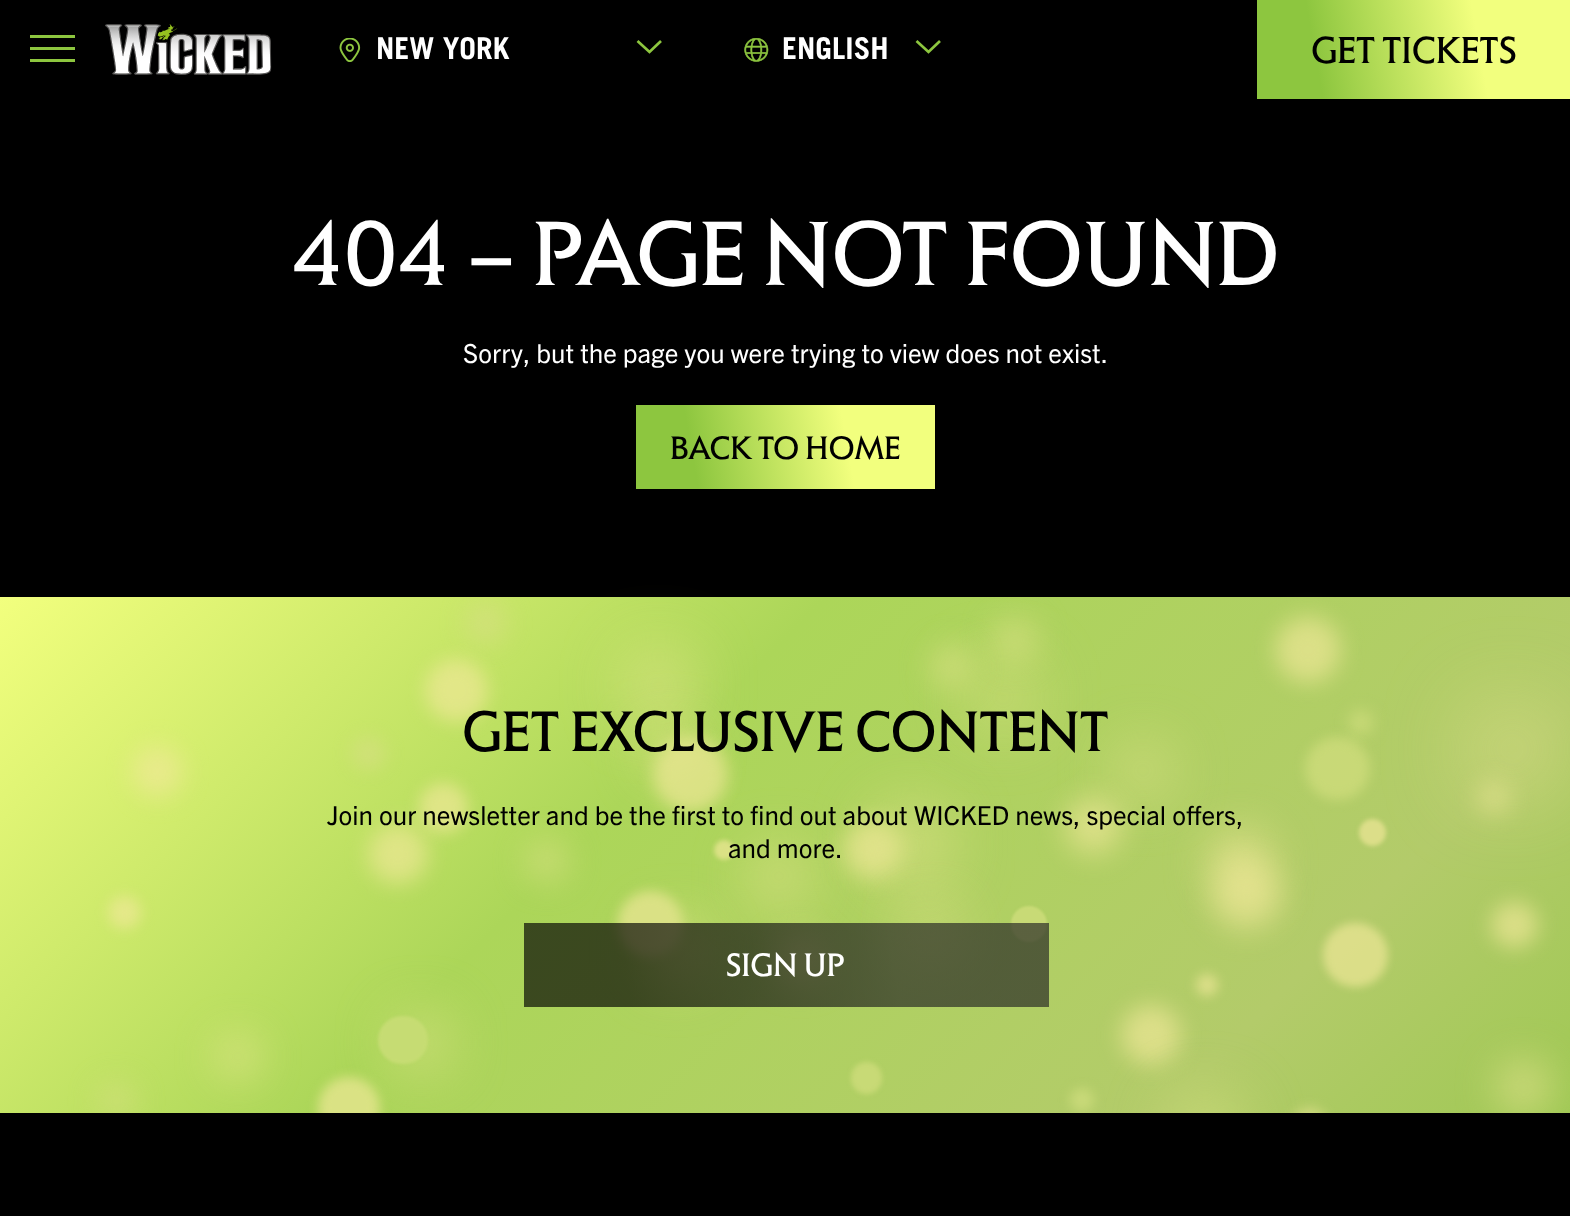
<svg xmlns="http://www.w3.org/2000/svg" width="1570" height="1216">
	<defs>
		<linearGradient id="g1" gradientUnits="userSpaceOnUse" x1="1253" y1="78" x2="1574" y2="21"><stop offset="0.2" stop-color="#8DC63F" /><stop offset="0.7" stop-color="#F2FF7E" /></linearGradient>
		<linearGradient id="g2" gradientUnits="userSpaceOnUse" x1="633" y1="474" x2="937" y2="420"><stop offset="0.2" stop-color="#8DC63F" /><stop offset="0.7" stop-color="#F2FF7E" /></linearGradient>
		<linearGradient id="g3" gradientUnits="userSpaceOnUse" x1="1568" y1="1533" x2="316" y2="281"><stop offset="0" stop-color="#8DC63F" /><stop offset="0.33" stop-color="#B3CB6A" /><stop offset="0.67" stop-color="#ACD659" /><stop offset="1" stop-color="#F2FF7E" /></linearGradient>
		<clipPath id="clip1"><rect x="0" y="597" width="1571" height="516" /></clipPath>
		<clipPath id="clip2"><rect x="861" y="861" width="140" height="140" /></clipPath>
		<linearGradient id="g4" gradientUnits="userSpaceOnUse" x1="524" y1="1011" x2="1048" y2="918"><stop offset="0.2" stop-color="#000000" stop-opacity="0.66" /><stop offset="0.7" stop-color="#232323" stop-opacity="0.66" /></linearGradient>
	</defs>
	<rect width="100%" height="100%" fill="#000000" />
	<rect x="30" y="47" width="45" height="3" fill="#8DC63F" />
	<rect x="30" y="35" width="45" height="3" fill="#8DC63F" />
	<rect x="30" y="59" width="45" height="3" fill="#8DC63F" />
	<image x="105" y="24" width="167" height="51" href="assets/img1.png" />
	<image x="339" y="38" width="22" height="24" href="assets/img2.png" />
	<text x="376" y="59" font-family="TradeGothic" font-size="30" font-weight="700" fill="#FFFFFF">NEW YORK</text>
	<path d="M637.5 41L649.5 52L661 41" fill="none" stroke="#8DC63F" stroke-width="2.7" />
	<image x="744" y="38" width="25" height="24" href="assets/img3.png" />
	<text x="782" y="59" font-family="TradeGothic" font-size="30" font-weight="700" fill="#FFFFFF">ENGLISH</text>
	<path d="M916.5 41L928.5 52L940 41" fill="none" stroke="#8DC63F" stroke-width="2.7" />
	<rect x="1257" y="0" width="313" height="99" fill="url(#g1)" />
	<text x="1311" y="63" font-family="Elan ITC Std" font-size="39" fill="#000000">GET TICKETS</text>
	<text x="291" y="285" font-family="Elan ITC Std" font-size="94.75" fill="#FFFFFF">404 – PAGE NOT FOUND</text>
	<text x="463" y="363" font-family="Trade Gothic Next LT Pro" font-size="26.25" fill="#FFFFFF">Sorry, but the page you were trying to view does not exist.</text>
	<rect x="636" y="405" width="299" height="84" fill="url(#g2)" />
	<text x="670" y="459" font-family="Elan ITC Std" font-size="33.75" fill="#000000">BACK TO HOME</text>
	<rect x="0" y="597" width="1570" height="516" fill="url(#g3)" />
	<g clip-path="url(#clip1)">
		<rect x="465" y="602" width="42" height="42" rx="21" fill="#D4DF80" fill-opacity="0.66" filter="blur(11.5px)" />
	</g>
	<rect x="627" y="653" width="63" height="64" rx="31.5" fill="#F1E89A" fill-opacity="0.66" filter="blur(32px)" />
	<rect x="975" y="669" width="56" height="56" rx="28" fill="#F1E89A" fill-opacity="0.66" filter="blur(33.5px)" />
	<g clip-path="url(#clip1)">
		<rect x="992" y="617" width="46" height="46" rx="23" fill="#D4DF80" fill-opacity="0.66" filter="blur(15.5px)" />
	</g>
	<rect x="1275" y="617" width="66" height="66" rx="33" fill="#F1E89A" fill-opacity="0.66" filter="blur(11px)" />
	<rect x="1473" y="710" width="78" height="78" rx="39" fill="#F1E89A" fill-opacity="0.66" filter="blur(44px)" />
	<rect x="132" y="746" width="51" height="51" rx="25.5" fill="#F1E89A" fill-opacity="0.66" filter="blur(12.5px)" />
	<rect x="351" y="737" width="35" height="33" rx="16.5" fill="#D4DF80" fill-opacity="0.66" filter="blur(8.5px)" />
	<rect x="425" y="659" width="63" height="63" rx="31.5" fill="#F1E89A" fill-opacity="0.66" filter="blur(9px)" />
	<rect x="645" y="726" width="47" height="47" rx="23.5" fill="#F1E89A" fill-opacity="0.66" filter="blur(26px)" />
	<rect x="929" y="644" width="45" height="45" rx="22.5" fill="#D4DF80" fill-opacity="0.66" filter="blur(14.5px)" />
	<rect x="1119" y="746" width="48" height="49" rx="24" fill="#F1E89A" fill-opacity="0.66" filter="blur(29px)" />
	<rect x="1349" y="710" width="24" height="25" rx="12" fill="#C8D977" filter="blur(7.5px)" />
	<rect x="419" y="783" width="49" height="50" rx="24.5" fill="#F1E89A" fill-opacity="0.66" filter="blur(7.5px)" />
	<rect x="653" y="737" width="75" height="75" rx="37.5" fill="#F1E89A" fill-opacity="0.66" filter="blur(8px)" />
	<rect x="878" y="809" width="69" height="69" rx="34.5" fill="#F1E89A" fill-opacity="0.66" filter="blur(32.5px)" />
	<rect x="1065" y="798" width="57" height="56" rx="28" fill="#F1E89A" fill-opacity="0.66" filter="blur(14.5px)" />
	<rect x="1305" y="737" width="65" height="63" rx="31.5" fill="#D4DF80" fill-opacity="0.66" filter="blur(6px)" />
	<rect x="1479" y="783" width="30" height="30" rx="15" fill="#F1E89A" fill-opacity="0.66" filter="blur(13px)" />
	<rect x="752" y="849" width="54" height="54" rx="27" fill="#F1E89A" fill-opacity="0.66" filter="blur(28.5px)" />
	<rect x="1209" y="830" width="63" height="63" rx="31.5" fill="#F1E89A" fill-opacity="0.66" filter="blur(22px)" />
	<rect x="368" y="824" width="60" height="60" rx="30" fill="#F1E89A" fill-opacity="0.66" filter="blur(10.5px)" />
	<rect x="525" y="840" width="44" height="42" rx="21" fill="#D4DF80" fill-opacity="0.66" filter="blur(15.5px)" />
	<rect x="843" y="819" width="59" height="60" rx="29.5" fill="#F1E89A" fill-opacity="0.66" filter="blur(11px)" />
	<rect x="1359" y="819" width="27" height="27" rx="13.5" fill="#DCDE89" filter="blur(2px)" />
	<rect x="714" y="840" width="20" height="20" rx="10" fill="#F1E89A" fill-opacity="0.66" filter="blur(2px)" />
	<g clip-path="url(#clip2)">
		<rect x="906" y="906" width="50" height="50" rx="25" fill="#F1E89A" fill-opacity="0.66" filter="blur(30.5px)" />
	</g>
	<rect x="1212" y="860" width="69" height="69" rx="34.5" fill="#F1E89A" fill-opacity="0.66" filter="blur(15px)" />
	<rect x="648" y="923" width="57" height="55" rx="27.5" fill="#F1E89A" fill-opacity="0.66" filter="blur(27.5px)" />
	<rect x="1491" y="902" width="47" height="46" rx="23" fill="#F1E89A" fill-opacity="0.66" filter="blur(10px)" />
	<rect x="108" y="896" width="33" height="33" rx="16.5" fill="#F1E89A" fill-opacity="0.66" filter="blur(7px)" />
	<g clip-path="url(#clip1)">
		<rect x="389" y="1010" width="64" height="66" rx="32" fill="#D4DF80" fill-opacity="0.66" filter="blur(25.5px)" />
	</g>
	<rect x="618" y="891" width="65" height="66" rx="32.5" fill="#DAE185" filter="blur(6px)" />
	<rect x="779" y="938" width="43" height="43" rx="21.5" fill="#F1E89A" fill-opacity="0.66" filter="blur(17.5px)" />
	<rect x="1011" y="906" width="36" height="36" rx="18" fill="#C8DA76" filter="blur(1px)" />
	<rect x="1196" y="974" width="22" height="22" rx="11" fill="#F1E89A" fill-opacity="0.66" filter="blur(6px)" />
	<rect x="1323" y="923" width="65" height="64" rx="32" fill="#F1E89A" fill-opacity="0.66" filter="blur(4.5px)" />
	<rect x="218" y="1037" width="40" height="39" rx="19.5" fill="#F1E89A" fill-opacity="0.66" filter="blur(21px)" />
	<rect x="1121" y="1005" width="60" height="60" rx="30" fill="#F1E89A" fill-opacity="0.66" filter="blur(11px)" />
	<g clip-path="url(#clip1)">
		<rect x="1499" y="1062" width="49" height="50" rx="24.5" fill="#F1E89A" fill-opacity="0.66" filter="blur(20.5px)" />
		<rect x="98" y="1083" width="37" height="36" rx="18" fill="#D4DF80" fill-opacity="0.66" filter="blur(14.5px)" />
		<rect x="318" y="1077" width="62" height="62" rx="31" fill="#DAE284" filter="blur(5.5px)" />
	</g>
	<rect x="378" y="1016" width="50" height="48" rx="24" fill="#C6DC73" filter="blur(1.5px)" />
	<rect x="851" y="1062" width="31" height="32" rx="15.5" fill="#D4DF80" fill-opacity="0.66" filter="blur(2.5px)" />
	<g clip-path="url(#clip1)">
		<rect x="1166" y="1094" width="78" height="76" rx="38" fill="#D4DF80" fill-opacity="0.66" filter="blur(29.5px)" />
		<rect x="1070" y="1088" width="24" height="24" rx="12" fill="#C8D978" filter="blur(5.5px)" />
		<rect x="1293" y="1109" width="33" height="33" rx="16.5" fill="#F1E89A" fill-opacity="0.66" filter="blur(7px)" />
	</g>
	<text x="462" y="751" font-family="Elan ITC Std" font-size="59.25" fill="#000000">GET EXCLUSIVE CONTENT</text>
	<g font-family="Trade Gothic Next LT Pro" font-size="26.25" fill="#000000">
		<text x="327" y="825">Join our newsletter and be the first to find out about</text>
		<text x="914" y="825">WICKED news, special offers,</text>
		<text x="728" y="858">and more.</text>
	</g>
	<rect x="524" y="923" width="525" height="84" fill="url(#g4)" />
	<text x="726" y="976" font-family="Elan ITC Std" font-size="33.75" fill="#FFFFFF">SIGN UP</text>
</svg>
